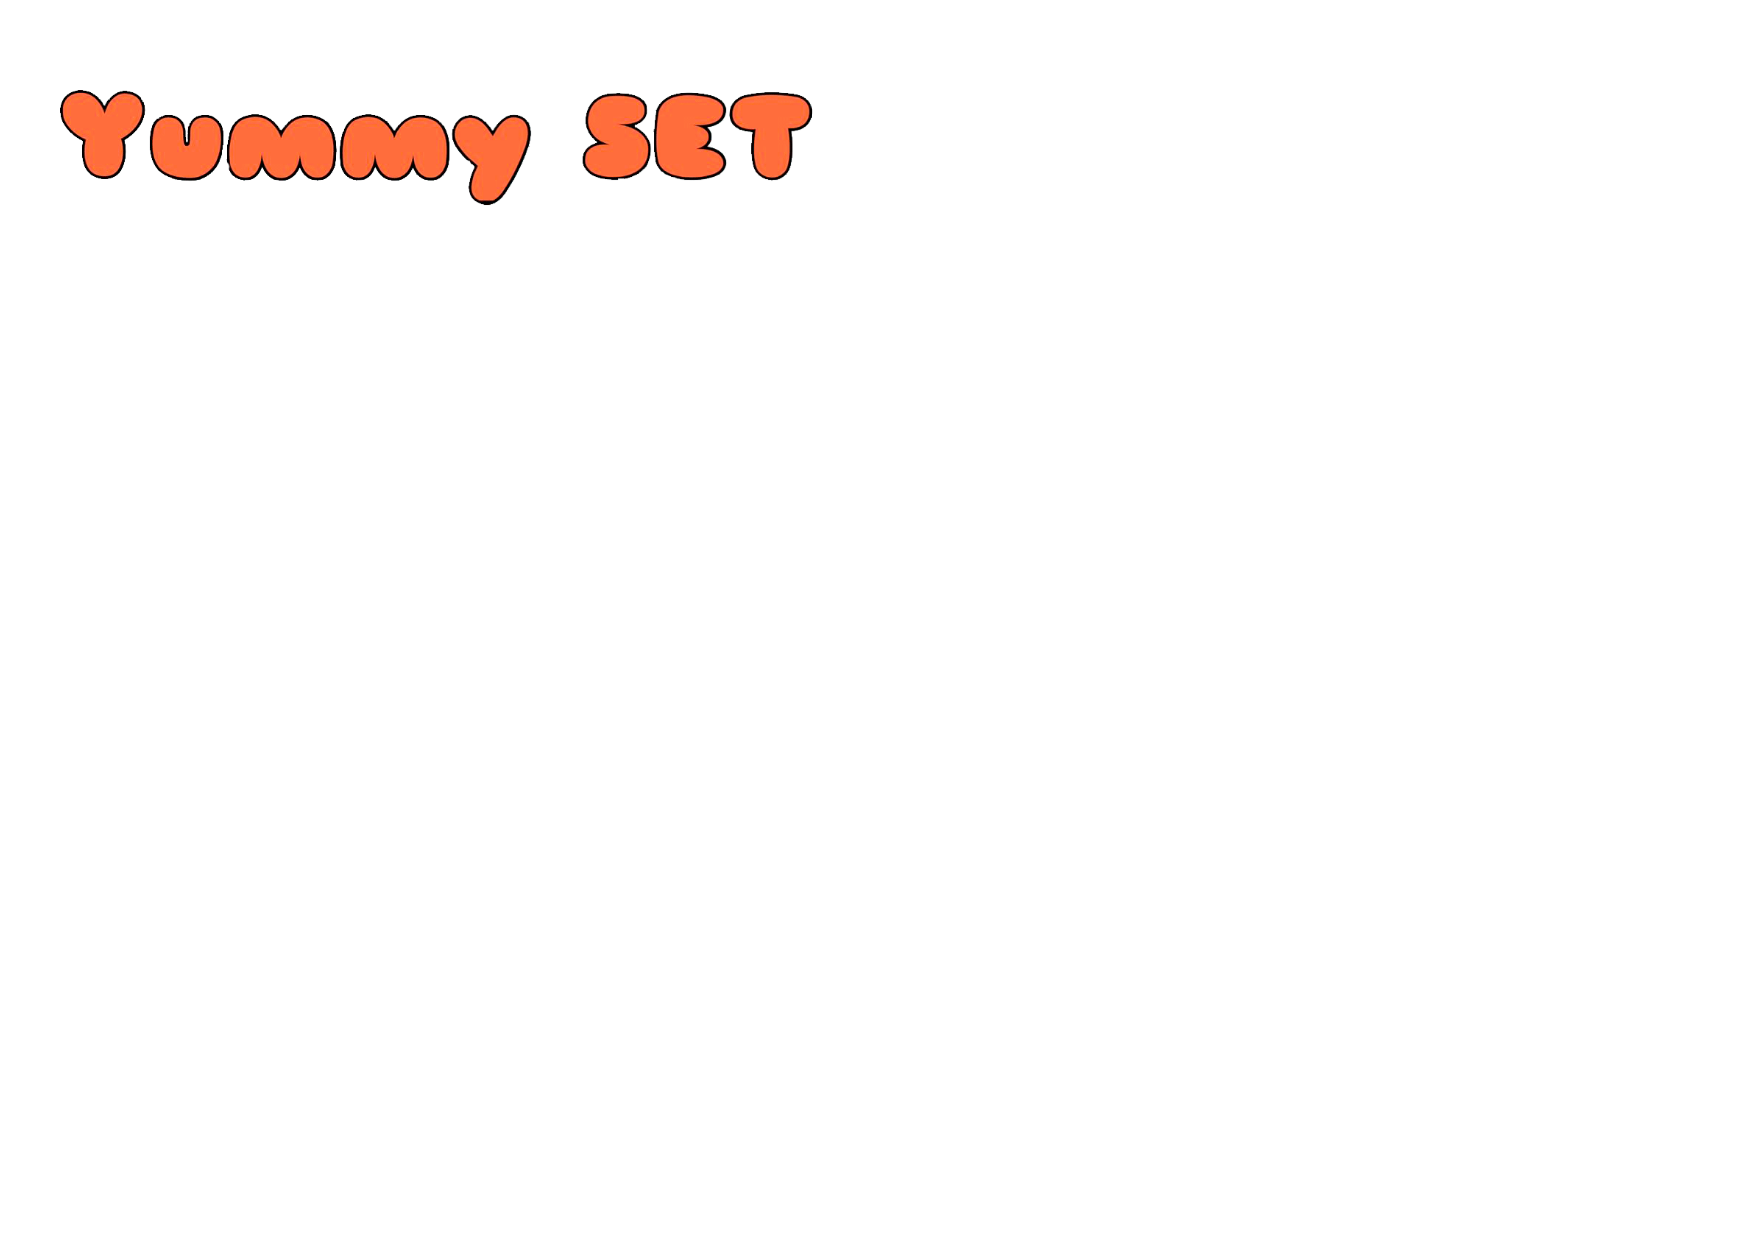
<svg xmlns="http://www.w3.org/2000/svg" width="1751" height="1257">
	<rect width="100%" height="100%" fill="#FFFFFF" />
	<image x="60" y="90" width="753" height="116" href="assets/img1.png" />
</svg>
